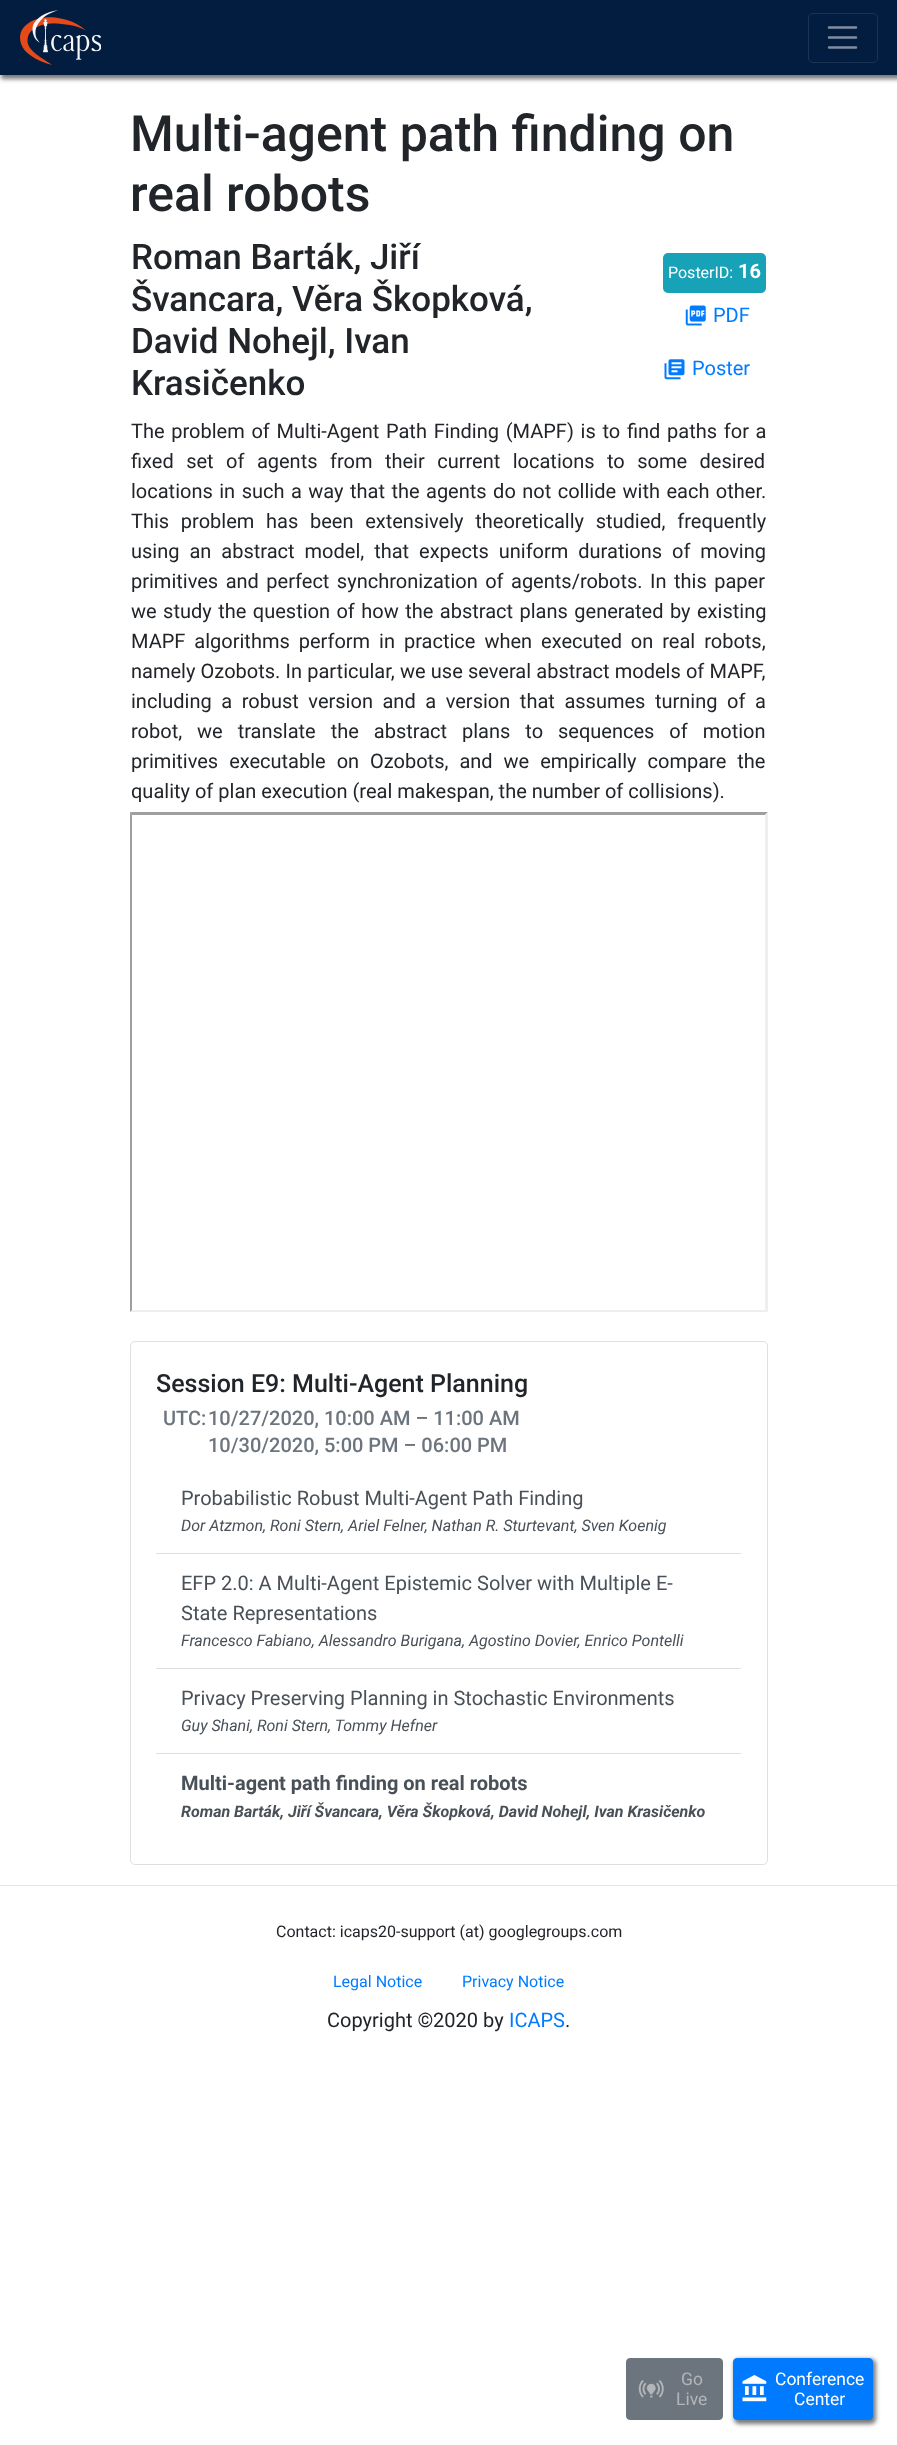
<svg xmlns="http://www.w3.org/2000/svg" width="897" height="2445">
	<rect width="100%" height="100%" fill="#FFFFFF" />
	<rect x="1" y="1" width="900" height="78" fill="#000000" fill-opacity="0.53" filter="blur(2px)" />
	<rect x="0" y="0" width="897" height="75" fill="#021D40" />
	<image x="20" y="10" width="81" height="55" href="assets/img1.png" />
	<rect x="808.5" y="13.5" width="69" height="49" rx="4.5" fill="none" stroke="#1B3453" />
	<path d="M829 27.5H856M829 37.5H856M829 47.5H856" fill="none" stroke="#818EA0" stroke-width="2.5" stroke-linecap="round" />
	<g font-family="Roboto" font-size="50" font-weight="500" fill="#212529">
		<text x="130" y="151">Multi-agent path finding on</text>
		<text x="130" y="211">real robots</text>
	</g>
	<g font-family="Roboto" font-size="35" font-weight="500" fill="#212529">
		<text x="131" y="269">Roman Barták, Jiří</text>
		<text x="131" y="311">Švancara, Věra Škopková,</text>
		<text x="131" y="353">David Nohejl, Ivan</text>
		<text x="131" y="395">Krasičenko</text>
	</g>
	<rect x="663" y="253" width="103" height="40" rx="5" fill="#17A2B8" />
	<text x="668" y="278" font-family="Roboto" font-size="16" fill="#FFFFFF">PosterID:</text>
	<text x="738" y="278" font-family="Roboto" font-size="20" font-weight="700" fill="#FFFFFF">16</text>
	<image x="685" y="305" width="21" height="21" href="assets/img2.png" />
	<text x="713" y="322" font-family="Roboto" font-size="20" fill="#007BFF">PDF</text>
	<image x="664" y="359" width="21" height="21" href="assets/img3.png" />
	<text x="692" y="375" font-family="Roboto" font-size="20" fill="#007BFF">Poster</text>
	<g font-family="Roboto" font-size="20" fill="#212529">
		<text x="131" y="438" word-spacing="1.75">The problem of Multi-Agent Path Finding (MAPF) is to find paths for a</text>
		<text x="131" y="468" word-spacing="7.5">fixed set of agents from their current locations to some desired</text>
		<text x="131" y="498" word-spacing="1.5">locations in such a way that the agents do not collide with each other.</text>
		<text x="131" y="528" word-spacing="6.75">This problem has been extensively theoretically studied, frequently</text>
		<text x="131" y="558" word-spacing="5">using an abstract model, that expects uniform durations of moving</text>
		<text x="131" y="588" word-spacing="2.5">primitives and perfect synchronization of agents/robots. In this paper</text>
		<text x="131" y="618" word-spacing="1.5">we study the question of how the abstract plans generated by existing</text>
		<text x="131" y="648" word-spacing="4">MAPF algorithms perform in practice when executed on real robots,</text>
		<text x="131" y="678" word-spacing="0.25">namely Ozobots. In particular, we use several abstract models of MAPF,</text>
		<text x="131" y="708" word-spacing="4.6">including a robust version and a version that assumes turning of a</text>
		<text x="131" y="738" word-spacing="10">robot, we translate the abstract plans to sequences of motion</text>
		<text x="131" y="768" word-spacing="6">primitives executable on Ozobots, and we empirically compare the</text>
		<text x="131" y="798">quality of plan execution (real makespan, the number of collisions).</text>
	</g>
	<path d="M130 812H768L765 815H132Z" fill="#9F9F9F" />
	<path d="M768 812V1312L765 1310V815Z" fill="#EEEEEE" />
	<path d="M768 1312H130L132 1310H765Z" fill="#EEEEEE" />
	<path d="M130 1312V812L132 815V1310Z" fill="#9F9F9F" />
	<rect x="130.5" y="1341.5" width="637" height="523" rx="4.5" fill="none" stroke="#DFDFDF" />
	<text x="156" y="1392" font-family="Roboto" font-size="25" font-weight="500" fill="#212529">Session E9: Multi-Agent Planning</text>
	<g font-family="Roboto" font-size="20" font-weight="500" fill="#6C757D">
		<text x="163" y="1425">UTC:</text>
		<text x="208" y="1425">10/27/2020, 10:00 AM – 11:00 AM</text>
		<text x="208" y="1452">10/30/2020, 5:00 PM – 06:00 PM</text>
	</g>
	<rect x="156" y="1553" width="585" height="1" fill="#DFDFDF" />
	<text x="181" y="1505" font-family="Roboto" font-size="20" fill="#495057">Probabilistic Robust Multi-Agent Path Finding</text>
	<text x="181" y="1531" font-family="Roboto" font-size="16" font-style="italic" fill="#495057">Dor Atzmon, Roni Stern, Ariel Felner, Nathan R. Sturtevant, Sven Koenig</text>
	<rect x="156" y="1668" width="585" height="1" fill="#DFDFDF" />
	<g font-family="Roboto" font-size="20" fill="#495057">
		<text x="181" y="1590">EFP 2.0: A Multi-Agent Epistemic Solver with Multiple E-</text>
		<text x="181" y="1620">State Representations</text>
	</g>
	<text x="181" y="1646" font-family="Roboto" font-size="16" font-style="italic" fill="#495057">Francesco Fabiano, Alessandro Burigana, Agostino Dovier, Enrico Pontelli</text>
	<rect x="156" y="1753" width="585" height="1" fill="#DFDFDF" />
	<text x="181" y="1705" font-family="Roboto" font-size="20" fill="#495057">Privacy Preserving Planning in Stochastic Environments</text>
	<text x="181" y="1731" font-family="Roboto" font-size="16" font-style="italic" fill="#495057">Guy Shani, Roni Stern, Tommy Hefner</text>
	<text x="181" y="1790" font-family="Roboto" font-size="20" font-weight="700" fill="#495057">Multi-agent path finding on real robots</text>
	<text x="181" y="1817" font-family="Roboto" font-size="16" font-weight="700" font-style="italic" fill="#495057">Roman Barták, Jiří Švancara, Věra Škopková, David Nohejl, Ivan Krasičenko</text>
	<rect x="0" y="1885" width="897" height="1" fill="#E6E6E6" />
	<text x="276" y="1937" font-family="Roboto" font-size="16" fill="#212529">Contact: icaps20-support (at) googlegroups.com</text>
	<g font-family="Roboto" font-size="16" fill="#007BFF">
		<text x="333" y="1987">Legal Notice</text>
		<text x="462" y="1987">Privacy Notice</text>
	</g>
	<text x="327" y="2027" font-family="Roboto" font-size="20" fill="#212529">Copyright ©2020 by</text>
	<text x="509" y="2027" font-family="Roboto" font-size="20" fill="#007BFF">ICAPS</text>
	<text x="565" y="2027" font-family="Roboto" font-size="20" fill="#212529">.</text>
	<rect x="626.5" y="2358.5" width="96" height="61" rx="3.5" fill="#6C757D" stroke="#6C757D" />
	<image x="638" y="2380" width="26" height="18" href="assets/img4.png" />
	<g font-family="Roboto" font-size="17.5" fill="#B2B6BA">
		<text x="681" y="2385">Go</text>
		<text x="676" y="2405">Live</text>
	</g>
	<rect x="734" y="2359" width="142" height="65" rx="5" fill="#000000" fill-opacity="0.53" filter="blur(2px)" />
	<rect x="733.5" y="2358.5" width="139" height="61" rx="3.5" fill="#007BFF" stroke="#007BFF" />
	<image x="742" y="2375" width="25" height="27" href="assets/img5.png" />
	<g font-family="Roboto" font-size="17.5" fill="#FFFFFF">
		<text x="775" y="2385">Conference</text>
		<text x="794" y="2405">Center</text>
	</g>
</svg>
